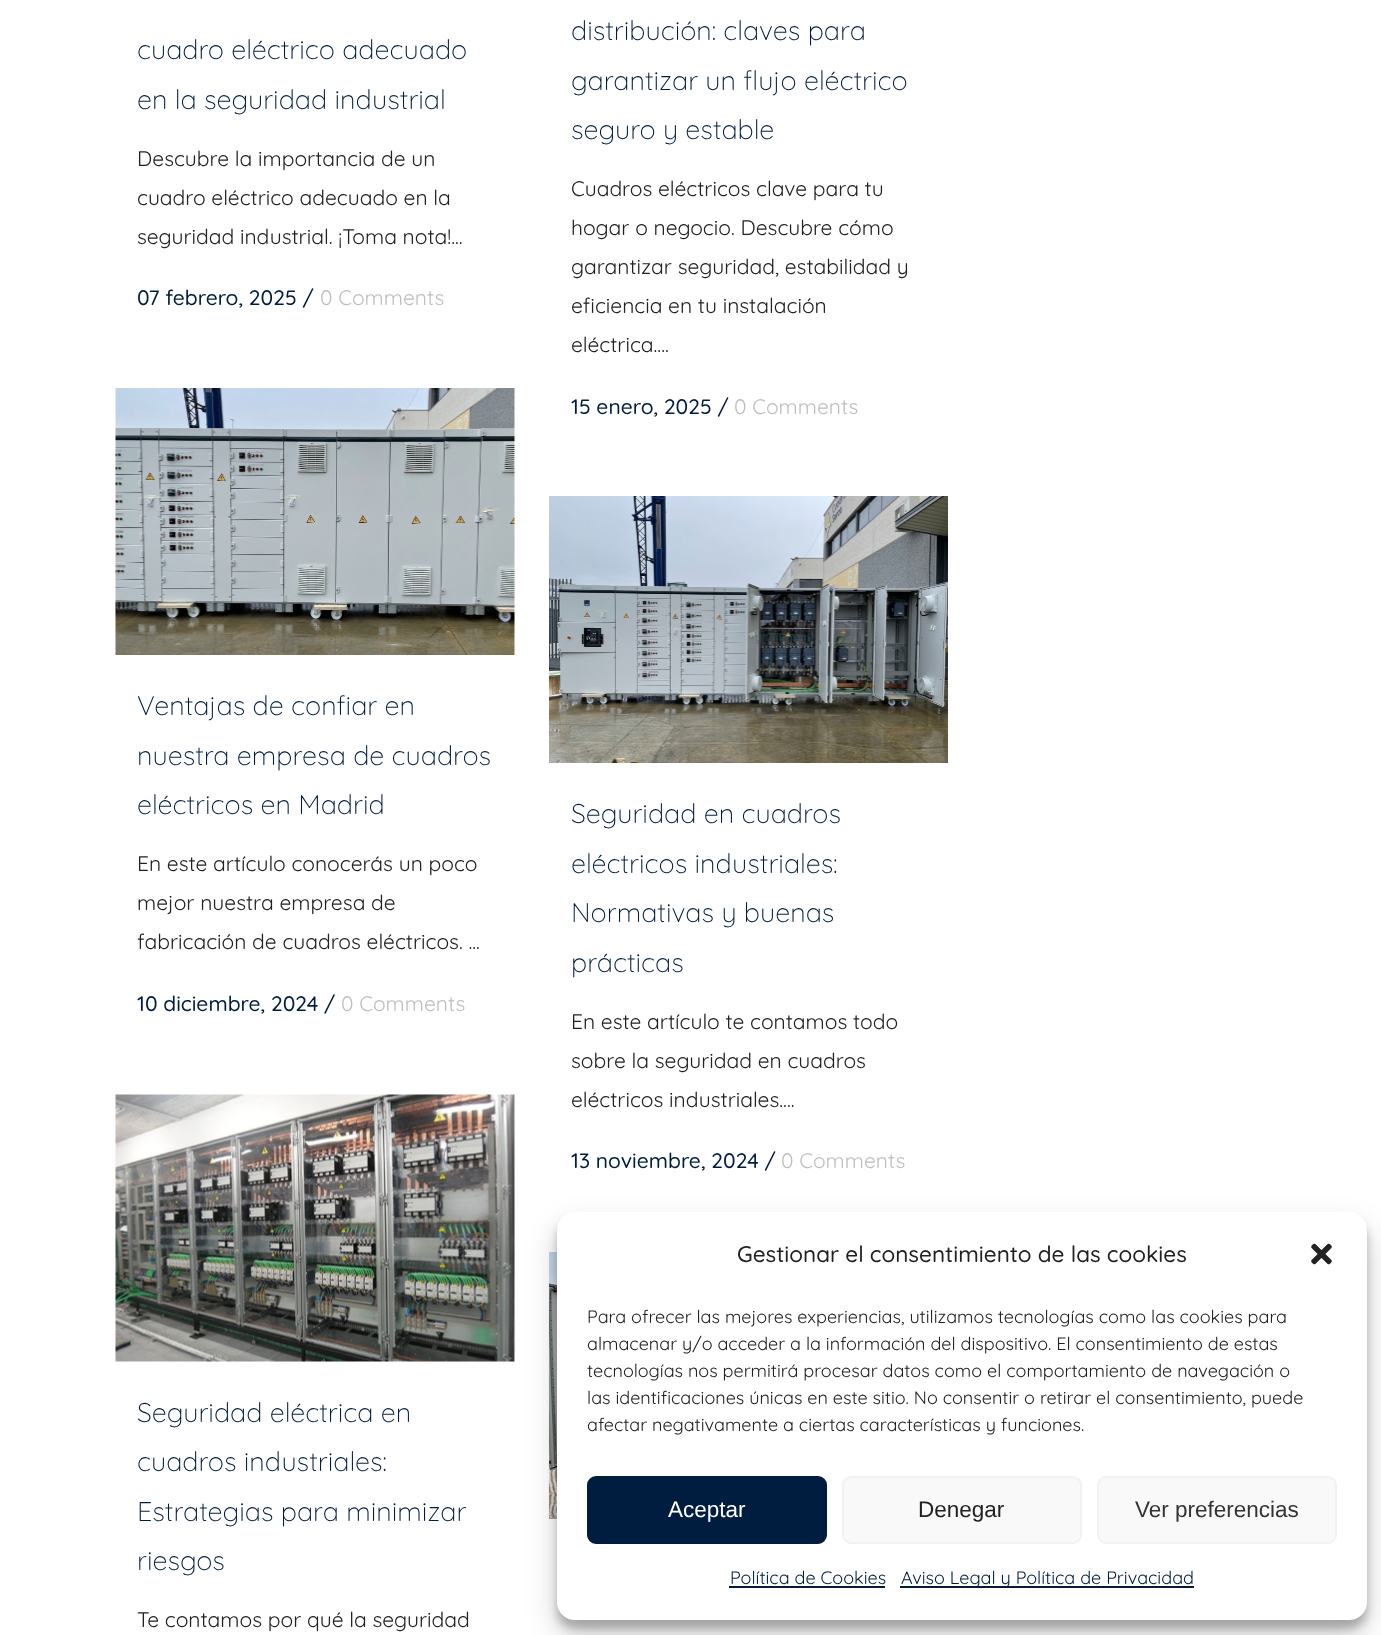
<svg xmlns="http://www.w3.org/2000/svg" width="1381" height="1635">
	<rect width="100%" height="100%" fill="#FFFFFF" />
	<g font-family="Quicksand" font-size="27" font-weight="300" fill="#001C3F">
		<text x="137" y="59">cuadro eléctrico adecuado</text>
		<text x="137" y="109">en la seguridad industrial</text>
	</g>
	<g font-family="Quicksand" font-size="21" fill="#212121">
		<text x="137" y="166">Descubre la importancia de un</text>
		<text x="137" y="205">cuadro eléctrico adecuado en la</text>
		<text x="137" y="244">seguridad industrial. ¡Toma nota!...</text>
	</g>
	<text x="137" y="305" font-family="Quicksand" font-size="21" font-weight="500" fill="#001C3F">07 febrero, 2025 /</text>
	<text x="320" y="305" font-family="Quicksand" font-size="21" fill="#BEBEBE">0 Comments</text>
	<g font-family="Quicksand" font-size="27" font-weight="300" fill="#001C3F">
		<text x="571" y="40">distribución: claves para</text>
		<text x="571" y="90">garantizar un flujo eléctrico</text>
		<text x="571" y="139">seguro y estable</text>
	</g>
	<g font-family="Quicksand" font-size="21" fill="#212121">
		<text x="571" y="196">Cuadros eléctricos clave para tu</text>
		<text x="571" y="235">hogar o negocio. Descubre cómo</text>
		<text x="571" y="274">garantizar seguridad, estabilidad y</text>
		<text x="571" y="313">eficiencia en tu instalación</text>
		<text x="571" y="352">eléctrica....</text>
	</g>
	<text x="571" y="414" font-family="Quicksand" font-size="21" font-weight="500" fill="#001C3F">15 enero, 2025 /</text>
	<text x="734" y="414" font-family="Quicksand" font-size="21" fill="#BEBEBE">0 Comments</text>
	<image x="115" y="388" width="400" height="267" href="assets/img1.png" />
	<g font-family="Quicksand" font-size="27" font-weight="300" fill="#001C3F">
		<text x="137" y="715">Ventajas de confiar en</text>
		<text x="137" y="765">nuestra empresa de cuadros</text>
		<text x="137" y="814">eléctricos en Madrid</text>
	</g>
	<g font-family="Quicksand" font-size="21" fill="#212121">
		<text x="137" y="871">En este artículo conocerás un poco</text>
		<text x="137" y="910">mejor nuestra empresa de</text>
		<text x="137" y="949">fabricación de cuadros eléctricos. ...</text>
	</g>
	<text x="137" y="1011" font-family="Quicksand" font-size="21" font-weight="500" fill="#001C3F">10 diciembre, 2024 /</text>
	<text x="341" y="1011" font-family="Quicksand" font-size="21" fill="#BEBEBE">0 Comments</text>
	<image x="549" y="496" width="399" height="267" href="assets/img2.png" />
	<g font-family="Quicksand" font-size="27" font-weight="300" fill="#001C3F">
		<text x="571" y="823">Seguridad en cuadros</text>
		<text x="571" y="873">eléctricos industriales:</text>
		<text x="571" y="922">Normativas y buenas</text>
		<text x="571" y="972">prácticas</text>
	</g>
	<g font-family="Quicksand" font-size="21" fill="#212121">
		<text x="571" y="1029">En este artículo te contamos todo</text>
		<text x="571" y="1068">sobre la seguridad en cuadros</text>
		<text x="571" y="1107">eléctricos industriales....</text>
	</g>
	<text x="571" y="1168" font-family="Quicksand" font-size="21" font-weight="500" fill="#001C3F">13 noviembre, 2024 /</text>
	<text x="781" y="1168" font-family="Quicksand" font-size="21" fill="#BEBEBE">0 Comments</text>
	<image x="115" y="1094" width="400" height="268" href="assets/img3.png" />
	<g font-family="Quicksand" font-size="27" font-weight="300" fill="#001C3F">
		<text x="137" y="1422">Seguridad eléctrica en</text>
		<text x="137" y="1471">cuadros industriales:</text>
		<text x="137" y="1521">Estrategias para minimizar</text>
		<text x="137" y="1570">riesgos</text>
	</g>
	<text x="137" y="1627" font-family="Quicksand" font-size="21" fill="#212121">Te contamos por qué la seguridad</text>
	<image x="549" y="1252" width="8" height="267" href="assets/img4.png" />
	<rect x="557" y="1221" width="810" height="408" rx="18" fill="#000000" fill-opacity="0.23" filter="blur(4.5px)" />
	<rect x="557" y="1227" width="810" height="408" rx="18" fill="#000000" fill-opacity="0.19" filter="blur(15px)" />
	<rect x="557" y="1212" width="810" height="408" rx="18" fill="#FFFFFF" />
	<text x="737" y="1262" font-family="Quicksand" font-size="22.5" font-weight="500" fill="#212121">Gestionar el consentimiento de las cookies</text>
	<image x="1311" y="1243" width="21" height="22" href="assets/img5.png" />
	<g font-family="Quicksand" font-size="18" fill="#212121">
		<text x="587" y="1323">Para ofrecer las mejores experiencias, utilizamos tecnologías como las cookies para</text>
		<text x="587" y="1350">almacenar y/o acceder a la información del dispositivo. El consentimiento de estas</text>
		<text x="587" y="1377">tecnologías nos permitirá procesar datos como el comportamiento de navegación o</text>
		<text x="587" y="1404">las identificaciones únicas en este sitio. No consentir o retirar el consentimiento, puede</text>
		<text x="587" y="1431">afectar negativamente a ciertas características y funciones.</text>
	</g>
	<rect x="588" y="1477" width="238" height="66" rx="8" fill="#001C3F" stroke="#001C3F" stroke-width="2" />
	<text x="668" y="1517" font-family="Liberation Sans" font-size="22.5" fill="#FFFFFF">Aceptar</text>
	<rect x="843" y="1477" width="238" height="66" rx="8" fill="#F9F9F9" stroke="#F2F2F2" stroke-width="2" />
	<text x="918" y="1517" font-family="Liberation Sans" font-size="22.5" fill="#212121">Denegar</text>
	<rect x="1098" y="1477" width="238" height="66" rx="8" fill="#F9F9F9" stroke="#F2F2F2" stroke-width="2" />
	<text x="1135" y="1517" font-family="Liberation Sans" font-size="22.5" fill="#333333">Ver preferencias</text>
	<text x="730" y="1584" font-family="Quicksand" font-size="18" fill="#001C3F">Política de Cookies</text>
	<rect x="729" y="1586" width="156" height="2" fill="#001C3F" />
	<rect x="900" y="1586" width="294" height="2" fill="#001C3F" />
	<text x="901" y="1584" font-family="Quicksand" font-size="18" fill="#001C3F">Aviso Legal y Política de Privacidad</text>
</svg>
